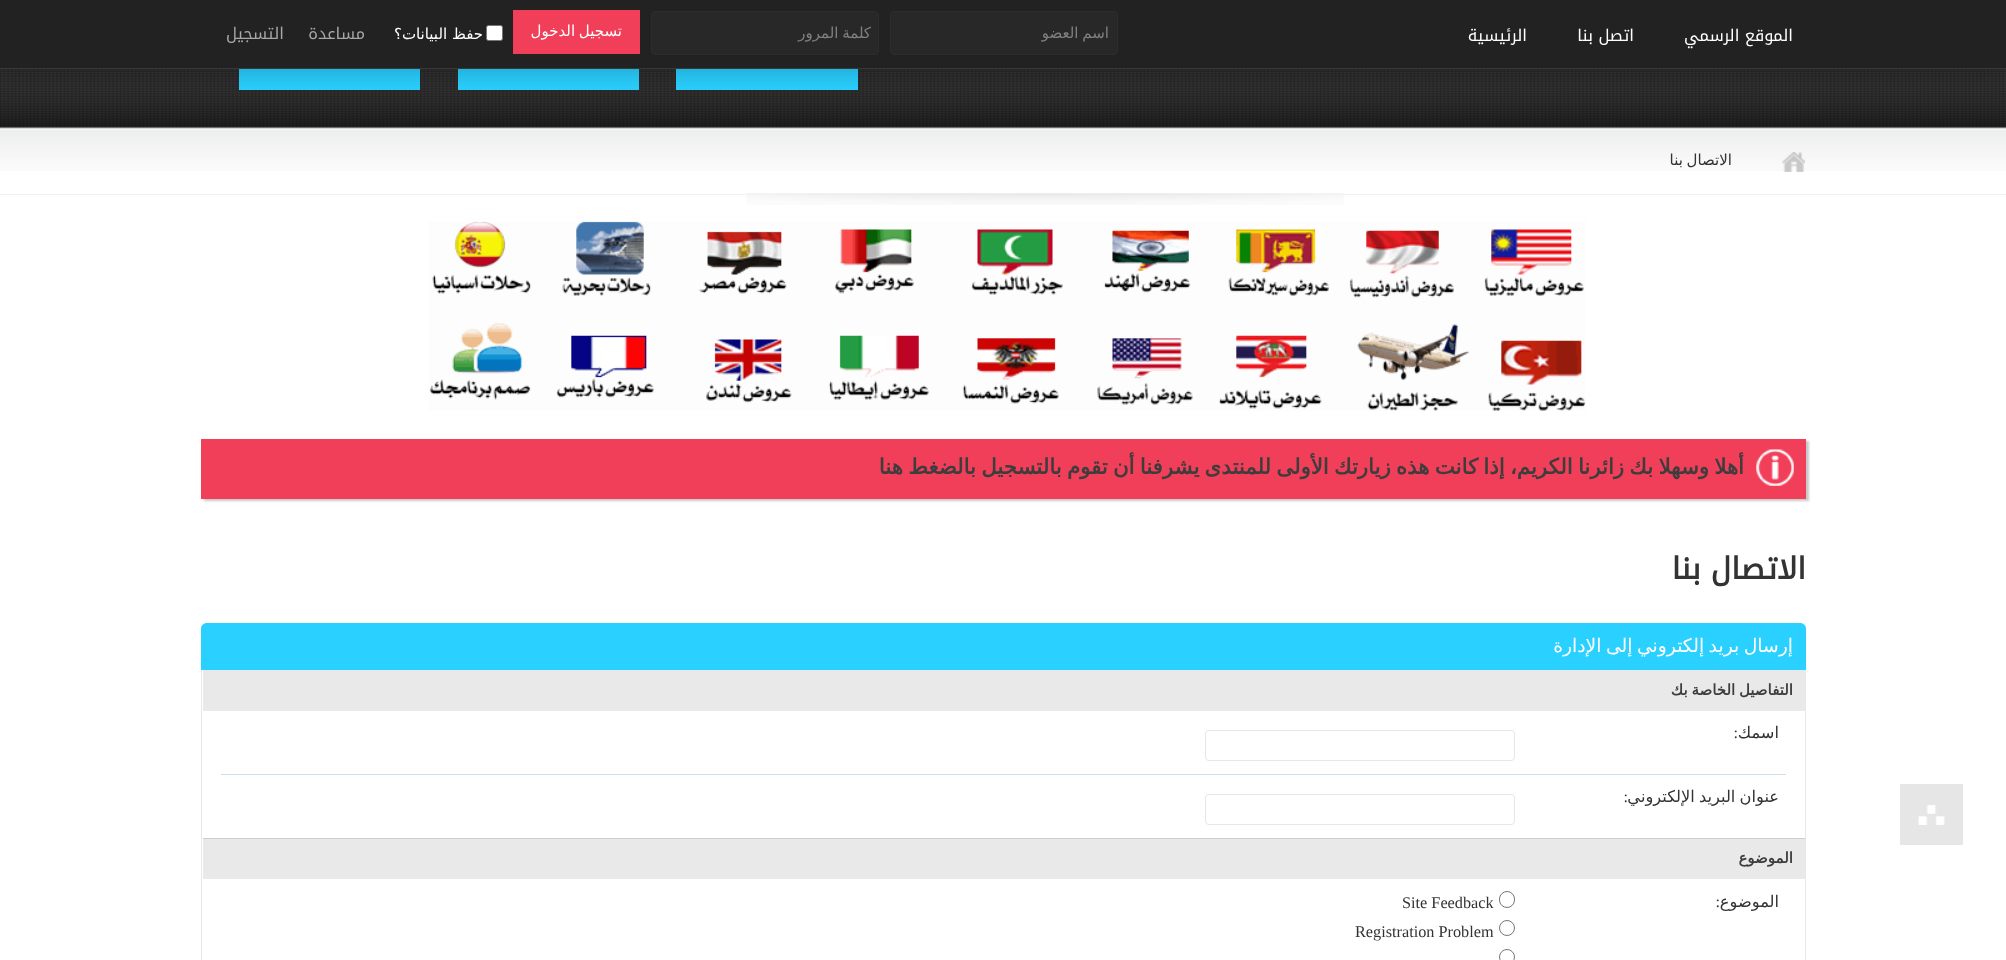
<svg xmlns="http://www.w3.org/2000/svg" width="2006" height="960">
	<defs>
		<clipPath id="clip1"><rect x="659" y="24" width="212" height="19" /></clipPath>
	</defs>
	<rect width="100%" height="100%" fill="#FFFFFF" />
	<image x="0" y="69" width="2006" height="102" href="assets/img1.png" />
	<rect x="676" y="69" width="182" height="21" fill="#2AD0FF" />
	<rect x="458" y="69" width="181" height="21" fill="#2AD0FF" />
	<rect x="239" y="69" width="181" height="21" fill="#2AD0FF" />
	<rect x="0" y="5" width="2006" height="69" fill="#000000" fill-opacity="0.2" filter="blur(12.5px)" />
	<rect x="0" y="0" width="2006" height="68" fill="#222222" />
	<rect x="0" y="68" width="2006" height="1" fill="#383838" />
	<g font-family="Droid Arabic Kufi" font-size="16.25" direction="rtl" fill="#FFFFFF">
		<text x="1793" y="41">الموقع الرسمي</text>
		<text x="1634" y="41">اتصل بنا</text>
		<text x="1527" y="41">الرئيسية</text>
	</g>
	<rect x="890.5" y="11.5" width="227" height="43" rx="3.5" fill="#282828" stroke="#2D2D2D" />
	<text x="1109" y="38" word-spacing="-1" font-family="DejaVu Sans" font-size="15" direction="rtl" fill="#808080">اسم العضو</text>
	<rect x="651.5" y="11.5" width="227" height="43" rx="3.5" fill="#282828" stroke="#2D2D2D" />
	<g clip-path="url(#clip1)">
		<text x="871" y="38" word-spacing="-1" font-family="DejaVu Sans" font-size="15" direction="rtl" fill="#808080">كلمة المرور</text>
	</g>
	<rect x="513" y="10" width="127" height="44" fill="#F13F59" />
	<text x="622" y="36" word-spacing="-1" font-family="DejaVu Sans" font-size="15" direction="rtl" fill="#FFFFFF">تسجيل الدخول</text>
	<rect x="486.5" y="25.5" width="16" height="15" rx="2" fill="#FFFFFF" stroke="#767676" />
	<text x="483" y="39" font-family="DejaVu Sans" font-size="15" direction="rtl" fill="#FFFFFF">حفظ البيانات؟</text>
	<g font-family="Droid Arabic Kufi" font-size="16.25" direction="rtl" fill="#A7A7A7">
		<text x="365" y="39">مساعدة</text>
		<text x="284" y="39">التسجيل</text>
	</g>
	<rect x="0" y="194" width="2006" height="1" fill="#F0F0F0" />
	<image x="1782" y="152" width="23" height="20" href="assets/img2.png" />
	<text x="1732" y="165" word-spacing="-1" font-family="DejaVu Sans" font-size="15" direction="rtl" fill="#333333">الاتصال بنا</text>
	<image x="746" y="193" width="598" height="12" href="assets/img3.png" />
	<rect x="1900" y="784" width="63" height="61" fill="#E6E6E6" />
	<image x="1918" y="805" width="27" height="20" href="assets/img4.png" />
	<image x="429" y="221" width="1157" height="190" href="assets/img5.png" />
	<rect x="204" y="441" width="1605" height="60" fill="#C8C8C8" filter="blur(1px)" />
	<rect x="201" y="439" width="1605" height="60" fill="#F13F59" />
	<image x="1756" y="449" width="38" height="37" href="assets/img6.png" />
	<text x="1744" y="474" word-spacing="-1.5" font-family="DejaVu Sans" font-size="21.25" font-weight="700" direction="rtl" fill="#3D3D3D">أهلا وسهلا بك زائرنا الكريم، إذا كانت هذه زيارتك الأولى للمنتدى يشرفنا أن تقوم بالتسجيل بالضغط هنا</text>
	<text x="1806" y="579" font-family="Droid Arabic Kufi" font-size="30" font-weight="700" direction="rtl" fill="#333333">الاتصال بنا</text>
	<path d="M207 623H1800C1803.5 623 1806 625.5 1806 629V670H201V629C201 625.5 203.5 623 207 623Z" fill="#2AD0FF" />
	<text x="1793" y="652" word-spacing="-1.5" font-family="DejaVu Sans" font-size="18.75" direction="rtl" fill="#FFFFFF">إرسال بريد إلكتروني إلى الإدارة</text>
	<rect x="1805" y="670" width="1" height="290" fill="#E8E8E8" />
	<rect x="201" y="670" width="1" height="290" fill="#E8E8E8" />
	<rect x="203" y="670" width="1602" height="41" fill="#E9E9E9" />
	<text x="1793" y="695" word-spacing="-1" font-family="DejaVu Sans" font-size="15" font-weight="700" direction="rtl" fill="#3D3D3D">التفاصيل الخاصة بك</text>
	<text x="1779" y="738" font-family="DejaVu Sans" font-size="16.25" direction="rtl" fill="#333333">اسمك</text>
	<text x="1738" y="738" font-family="Liberation Serif" font-size="16.25" direction="rtl" fill="#333333">:</text>
	<rect x="1205.5" y="730.5" width="309" height="30" rx="3.5" fill="none" stroke="#E7E7E7" />
	<rect x="221" y="774" width="1565" height="1" fill="#CEDFEB" />
	<text x="1779" y="802" word-spacing="-1" font-family="DejaVu Sans" font-size="16.25" direction="rtl" fill="#333333">عنوان البريد الإلكتروني</text>
	<text x="1628" y="802" font-family="Liberation Serif" font-size="16.25" direction="rtl" fill="#333333">:</text>
	<rect x="1205.5" y="794.5" width="309" height="30" rx="3.5" fill="none" stroke="#E7E7E7" />
	<rect x="203" y="839" width="1602" height="40" fill="#E9E9E9" />
	<rect x="203" y="838" width="1602" height="1" fill="#CECECE" />
	<text x="1793" y="863" font-family="DejaVu Sans" font-size="15" font-weight="700" direction="rtl" fill="#3D3D3D">الموضوع</text>
	<text x="1779" y="907" font-family="DejaVu Sans" font-size="16.25" direction="rtl" fill="#333333">الموضوع</text>
	<text x="1720" y="907" font-family="Liberation Serif" font-size="16.25" direction="rtl" fill="#333333">:</text>
	<rect x="1499.5" y="891.5" width="15" height="16" rx="7.5" fill="none" stroke="#767676" />
	<text x="1402" y="908" font-family="Liberation Serif" font-size="16.25" fill="#333333">Site Feedback</text>
	<circle cx="1507" cy="928" r="7.5" fill="none" stroke="#767676" />
	<text x="1355" y="937" font-family="Liberation Serif" font-size="16.25" fill="#333333">Registration Problem</text>
	<circle cx="1507" cy="957" r="7.5" fill="none" stroke="#767676" />
</svg>
